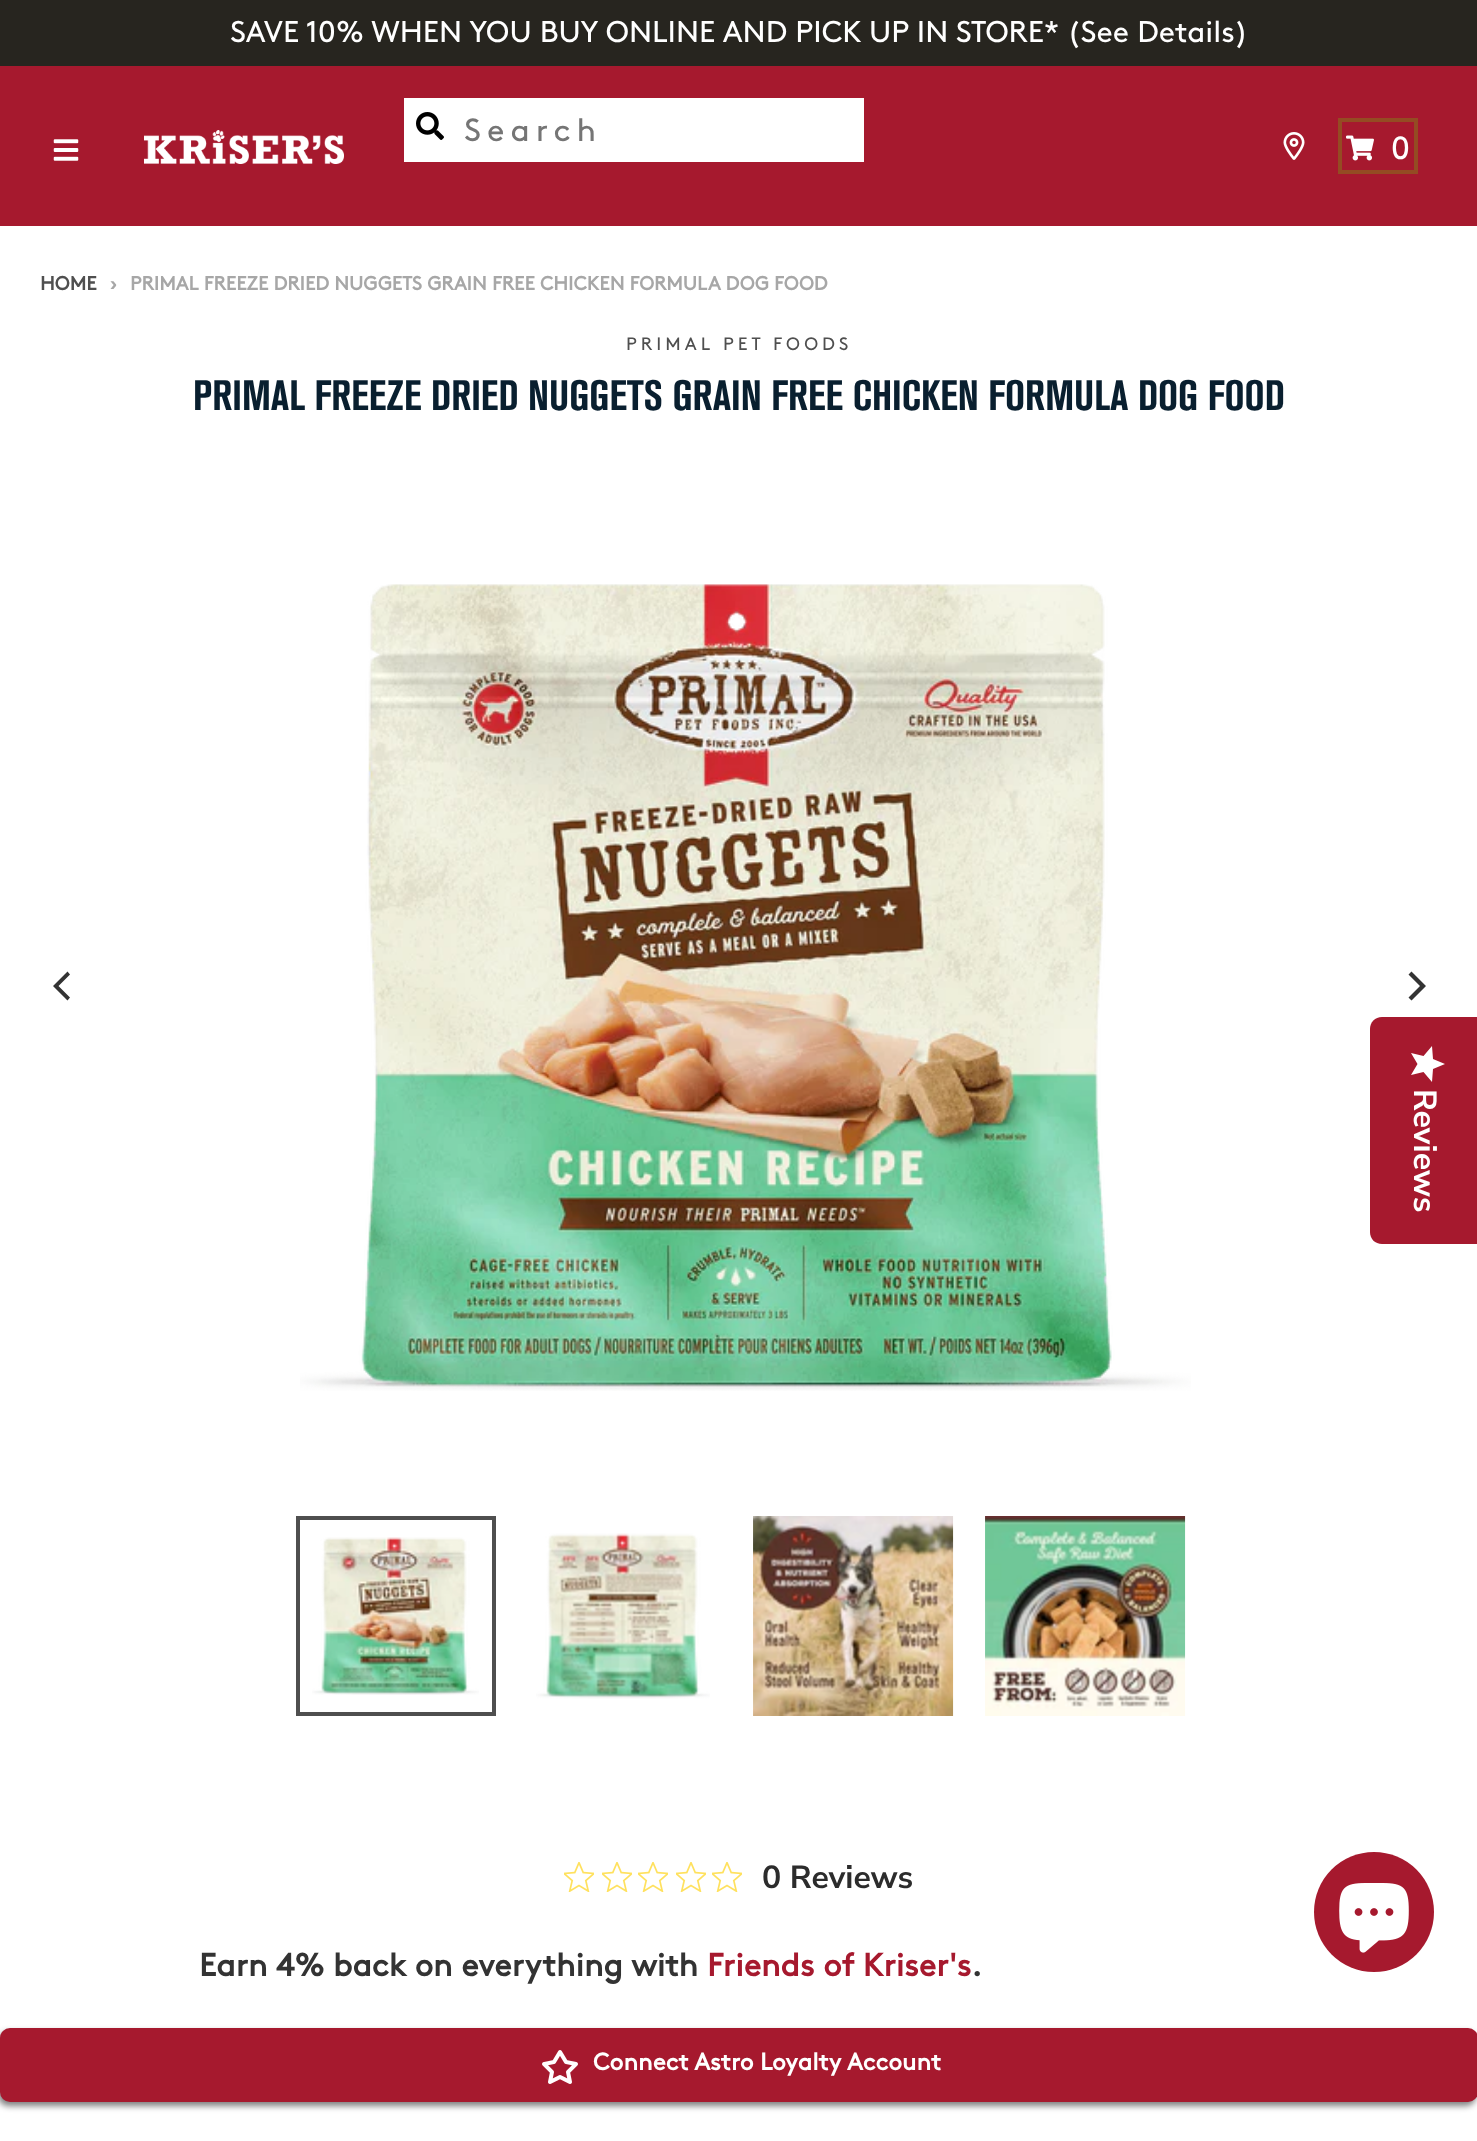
<svg xmlns="http://www.w3.org/2000/svg" width="1477" height="2141">
	<defs>
		<linearGradient id="g1" gradientUnits="userSpaceOnUse" x1="1445" y1="1046" x2="1445" y2="1082"><stop offset="1" stop-color="#FFFFFF" /><stop offset="1" stop-color="#EAEAEA" /></linearGradient>
	</defs>
	<rect width="100%" height="100%" fill="#FFFFFF" />
	<rect x="0" y="0" width="1477" height="66" fill="#27251F" />
	<text x="230" y="42" font-family="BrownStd" font-size="30" fill="#FFFFFF">SAVE 10% WHEN YOU BUY ONLINE AND PICK UP IN STORE* (See Details)</text>
	<rect x="0" y="66" width="1477" height="160" fill="#A6192E" />
	<image x="53" y="139" width="26" height="22" href="assets/img1.png" />
	<image x="144" y="130" width="200" height="34" href="assets/img2.png" />
	<rect x="404" y="98" width="460" height="64" fill="#FFFFFF" />
	<image x="416" y="112" width="28" height="28" href="assets/img3.png" />
	<text x="464" y="141" font-family="BrownStd" font-size="32" letter-spacing="6" fill="#757575">Search</text>
	<image x="1283" y="132" width="22" height="28" href="assets/img4.png" />
	<rect x="1340" y="120" width="76" height="52" fill="none" stroke="#944B23" stroke-width="4" />
	<image x="1346" y="135" width="28" height="26" href="assets/img5.png" />
	<text x="1391" y="159" font-family="BrownStd" font-size="32" letter-spacing="4" fill="#FFFFFF">0</text>
	<text x="40" y="290" font-family="BrownStd" font-size="19.25" font-weight="700" fill="#4F4F4F">HOME</text>
	<g font-family="BrownStd" font-size="19.25" font-weight="700" fill="#A7A7A7">
		<text x="110" y="290">›</text>
		<text x="130" y="290" word-spacing="-0.1">PRIMAL FREEZE DRIED NUGGETS GRAIN FREE CHICKEN FORMULA DOG FOOD</text>
	</g>
	<text x="626" y="350" font-family="BrownStd" font-size="18" letter-spacing="4" fill="#4F4F4F">PRIMAL PET FOODS</text>
	<text x="193" y="410" font-family="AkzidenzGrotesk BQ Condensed" font-size="42" font-weight="700" fill="#091F2F">PRIMAL FREEZE DRIED NUGGETS GRAIN FREE CHICKEN FORMULA DOG FOOD</text>
	<path d="M53 986L67.5 1000.5L70 997.5L58.5 986L70 974.5L67.5 971.5Z" fill="#333333" />
	<image x="300" y="584" width="891" height="807" href="assets/img6.png" />
	<path d="M1426 986L1411.5 971.5L1408.5 974.5L1420 986L1408.5 997.5L1411.5 1000.5Z" fill="#333333" />
	<rect x="298" y="1518" width="196" height="196" fill="none" stroke="#4F4F4F" stroke-width="4" />
	<image x="312" y="1537" width="167" height="158" href="assets/img7.png" />
	<image x="536" y="1533" width="174" height="166" href="assets/img8.png" />
	<image x="753" y="1516" width="201" height="200" href="assets/img9.png" />
	<image x="985" y="1516" width="201" height="200" href="assets/img10.png" />
	<image x="564" y="1862" width="30" height="30" href="assets/img11.png" />
	<image x="602" y="1862" width="30" height="30" href="assets/img11.png" />
	<image x="638" y="1862" width="30" height="30" href="assets/img11.png" />
	<image x="676" y="1862" width="30" height="30" href="assets/img11.png" />
	<image x="712" y="1862" width="30" height="30" href="assets/img11.png" />
	<text x="762" y="1888" font-family="Nunito Sans" font-size="32" font-weight="200" fill="#2C2C2C">0 Reviews</text>
	<text x="199" y="1976" font-family="BrownStd" font-size="32" font-weight="700" fill="#333333">Earn 4% back on everything with</text>
	<text x="707" y="1976" font-family="BrownStd" font-size="32" font-weight="700" fill="#A6192E">Friends of Kriser's</text>
	<text x="971" y="1976" font-family="BrownStd" font-size="32" font-weight="700" fill="#333333">.</text>
	<path d="M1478 1017V1244H1382C1375 1244 1370 1239 1370 1232V1029C1370 1022 1375 1017 1382 1017Z" fill="#A6192E" />
	<path d="M1417.5 1064L1411 1075L1423.5 1072L1432 1082L1433 1069L1445 1064L1433 1059L1432 1046L1423.5 1056L1411 1053Z" fill="url(#g1)" />
	<text x="1414" y="1089" transform="rotate(90 1414 1089)" font-family="Nunito Sans" font-size="32" font-weight="200" fill="#FFFFFF">Reviews</text>
	<circle cx="1374" cy="1912" r="60" fill="#A6192E" />
	<image x="1339" y="1883" width="70" height="70" href="assets/img12.png" />
	<rect x="-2" y="2032" width="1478" height="74" rx="10" fill="#000000" fill-opacity="0.5" filter="blur(3px)" />
	<rect x="0" y="2028" width="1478" height="74" rx="10" fill="#A6192E" />
	<image x="542" y="2050" width="36" height="34" href="assets/img13.png" />
	<text x="593" y="2070" font-family="BrownStd" font-size="24" font-weight="700" fill="#FFFFFF">Connect Astro Loyalty Account</text>
</svg>
